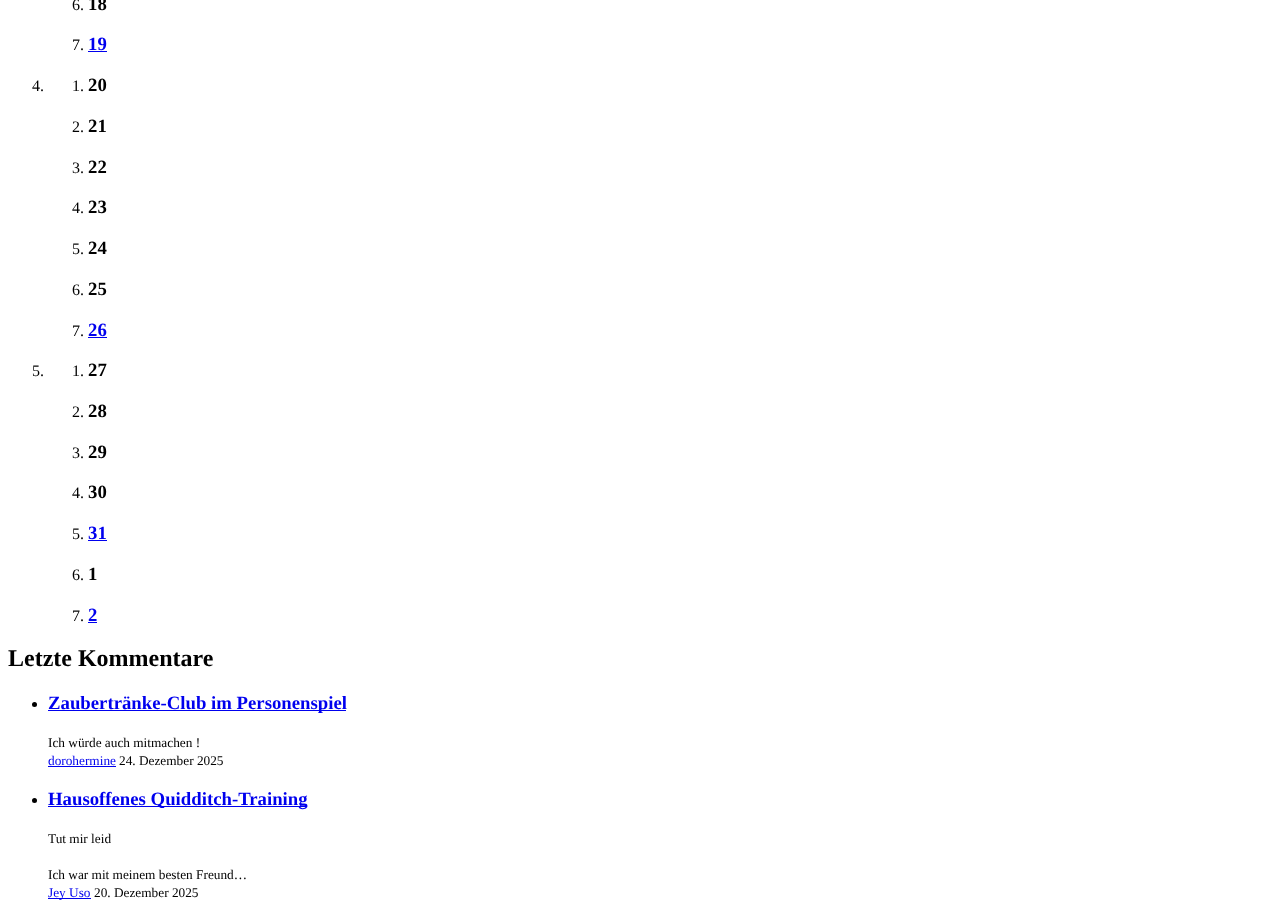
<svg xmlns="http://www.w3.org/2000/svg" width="1272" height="900">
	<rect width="100%" height="100%" fill="#FFFFFF" />
	<text x="72" y="10" font-family="Liberation Serif" font-size="16" fill="#000000">6.</text>
	<text x="88" y="10" font-family="Liberation Serif" font-size="18.75" font-weight="700" fill="#000000">18</text>
	<text x="72" y="50" font-family="Liberation Serif" font-size="16" fill="#000000">7.</text>
	<text x="88" y="50" font-family="Liberation Serif" font-size="18.75" font-weight="700" fill="#0000EE">19</text>
	<rect x="88" y="51" width="19" height="1" fill="#0000EE" />
	<g font-family="Liberation Serif" font-size="16" fill="#000000">
		<text x="32" y="91">4.</text>
		<text x="72" y="91">1.</text>
	</g>
	<text x="88" y="91" font-family="Liberation Serif" font-size="18.75" font-weight="700" fill="#000000">20</text>
	<text x="72" y="132" font-family="Liberation Serif" font-size="16" fill="#000000">2.</text>
	<text x="88" y="132" font-family="Liberation Serif" font-size="18.75" font-weight="700" fill="#000000">21</text>
	<text x="72" y="173" font-family="Liberation Serif" font-size="16" fill="#000000">3.</text>
	<text x="88" y="173" font-family="Liberation Serif" font-size="18.75" font-weight="700" fill="#000000">22</text>
	<text x="72" y="213" font-family="Liberation Serif" font-size="16" fill="#000000">4.</text>
	<text x="88" y="213" font-family="Liberation Serif" font-size="18.75" font-weight="700" fill="#000000">23</text>
	<text x="72" y="254" font-family="Liberation Serif" font-size="16" fill="#000000">5.</text>
	<text x="88" y="254" font-family="Liberation Serif" font-size="18.75" font-weight="700" fill="#000000">24</text>
	<text x="72" y="295" font-family="Liberation Serif" font-size="16" fill="#000000">6.</text>
	<text x="88" y="295" font-family="Liberation Serif" font-size="18.75" font-weight="700" fill="#000000">25</text>
	<text x="72" y="336" font-family="Liberation Serif" font-size="16" fill="#000000">7.</text>
	<text x="88" y="336" font-family="Liberation Serif" font-size="18.75" font-weight="700" fill="#0000EE">26</text>
	<rect x="88" y="337" width="19" height="1" fill="#0000EE" />
	<g font-family="Liberation Serif" font-size="16" fill="#000000">
		<text x="32" y="376">5.</text>
		<text x="72" y="376">1.</text>
	</g>
	<text x="88" y="376" font-family="Liberation Serif" font-size="18.75" font-weight="700" fill="#000000">27</text>
	<text x="72" y="417" font-family="Liberation Serif" font-size="16" fill="#000000">2.</text>
	<text x="88" y="417" font-family="Liberation Serif" font-size="18.75" font-weight="700" fill="#000000">28</text>
	<text x="72" y="458" font-family="Liberation Serif" font-size="16" fill="#000000">3.</text>
	<text x="88" y="458" font-family="Liberation Serif" font-size="18.75" font-weight="700" fill="#000000">29</text>
	<text x="72" y="498" font-family="Liberation Serif" font-size="16" fill="#000000">4.</text>
	<text x="88" y="498" font-family="Liberation Serif" font-size="18.75" font-weight="700" fill="#000000">30</text>
	<text x="72" y="539" font-family="Liberation Serif" font-size="16" fill="#000000">5.</text>
	<text x="88" y="539" font-family="Liberation Serif" font-size="18.75" font-weight="700" fill="#0000EE">31</text>
	<rect x="88" y="540" width="19" height="1" fill="#0000EE" />
	<text x="72" y="580" font-family="Liberation Serif" font-size="16" fill="#000000">6.</text>
	<text x="88" y="580" font-family="Liberation Serif" font-size="18.75" font-weight="700" fill="#000000">1</text>
	<text x="72" y="621" font-family="Liberation Serif" font-size="16" fill="#000000">7.</text>
	<text x="88" y="621" font-family="Liberation Serif" font-size="18.75" font-weight="700" fill="#0000EE">2</text>
	<rect x="88" y="622" width="9" height="1" fill="#0000EE" />
	<text x="8" y="666" font-family="Liberation Serif" font-size="24" font-weight="700" fill="#000000">Letzte Kommentare</text>
	<circle cx="34.5" cy="704.5" r="2.5" fill="#000000" />
	<rect x="48" y="710" width="298" height="1" fill="#0000EE" />
	<text x="48" y="709" font-family="Liberation Serif" font-size="18.75" font-weight="700" fill="#0000EE">Zaubertränke-Club im Personenspiel</text>
	<text x="48" y="747" font-family="Liberation Serif" font-size="13.3" fill="#000000">Ich würde auch mitmachen !</text>
	<text x="48" y="765" font-family="Liberation Serif" font-size="13.3" fill="#0000EE">dorohermine</text>
	<rect x="48" y="766" width="68" height="1" fill="#0000EE" />
	<text x="119" y="765" font-family="Liberation Serif" font-size="13.3" fill="#000000">24. Dezember 2025</text>
	<circle cx="34.5" cy="800.5" r="2.5" fill="#000000" />
	<rect x="48" y="806" width="259" height="1" fill="#0000EE" />
	<text x="48" y="805" font-family="Liberation Serif" font-size="18.75" font-weight="700" fill="#0000EE">Hausoffenes Quidditch-Training</text>
	<g font-family="Liberation Serif" font-size="13.3" fill="#000000">
		<text x="48" y="843">Tut mir leid</text>
		<text x="48" y="879">Ich war mit meinem besten Freund…</text>
	</g>
	<rect x="48" y="898" width="43" height="1" fill="#0000EE" />
	<text x="48" y="897" font-family="Liberation Serif" font-size="13.3" fill="#0000EE">Jey Uso</text>
	<text x="94" y="897" font-family="Liberation Serif" font-size="13.3" fill="#000000">20. Dezember 2025</text>
</svg>
